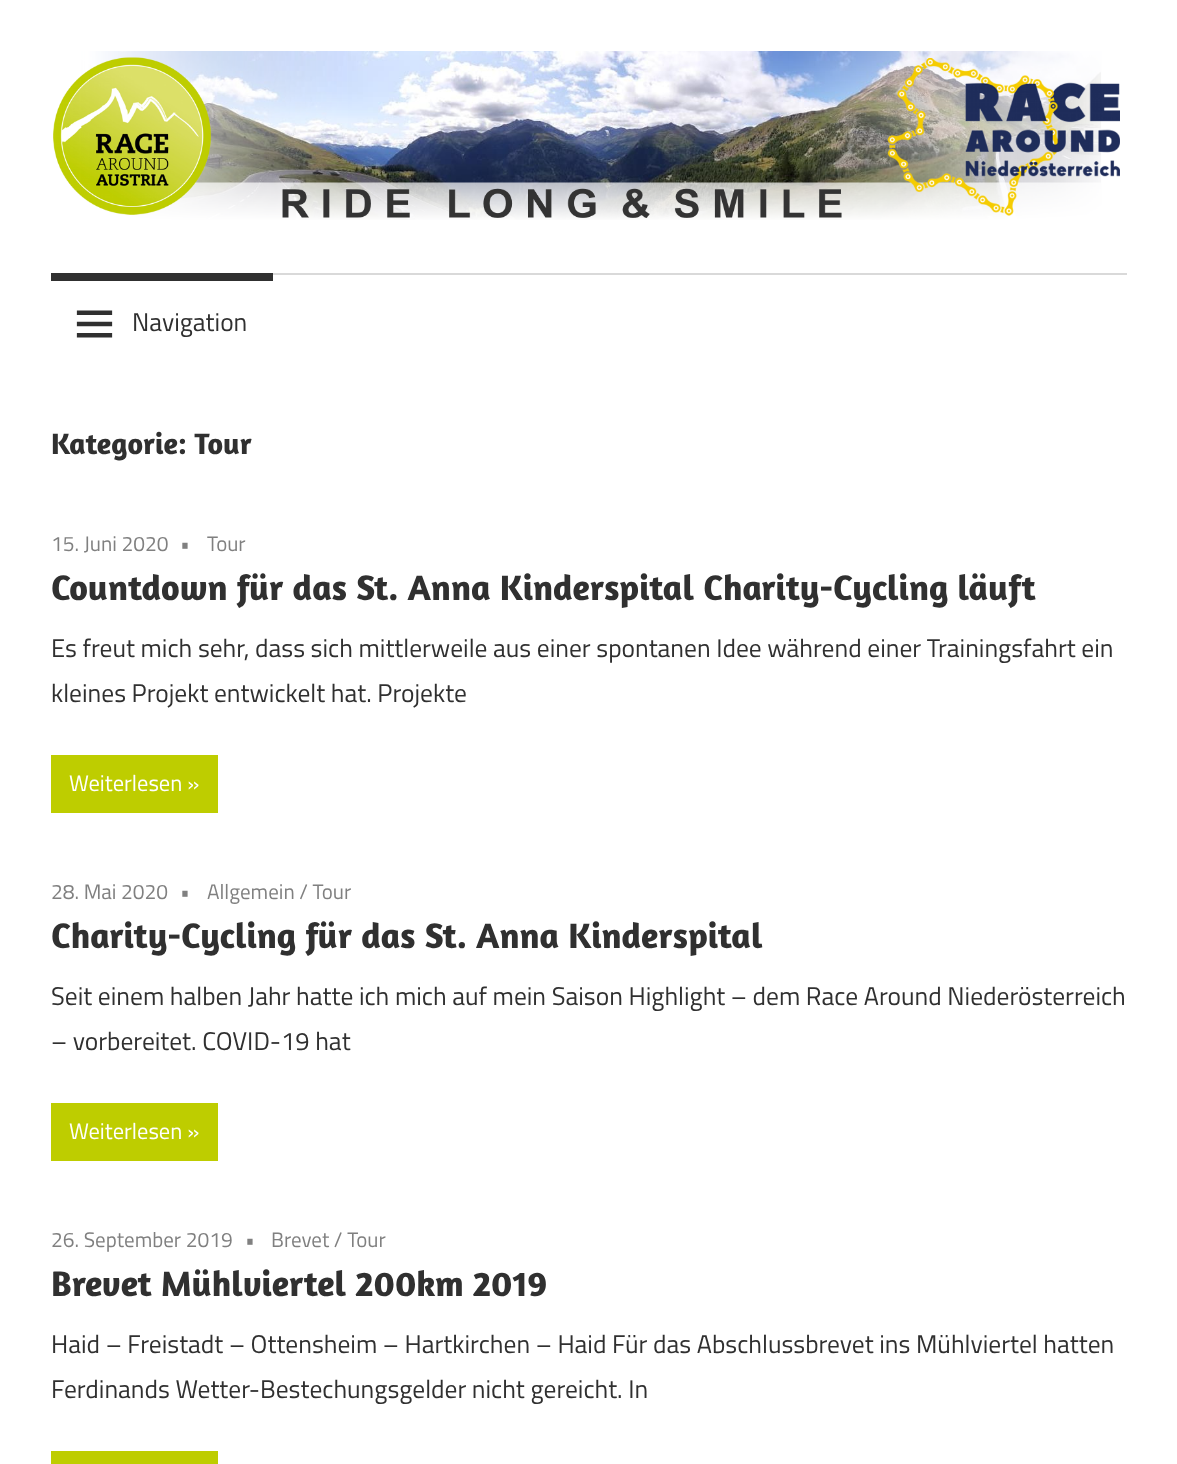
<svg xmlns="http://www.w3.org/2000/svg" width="1177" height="1464">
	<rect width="100%" height="100%" fill="#FFFFFF" />
	<image x="53" y="51" width="1067" height="169" href="assets/img1.png" />
	<rect x="273" y="273" width="854" height="2" fill="#D9D9D9" />
	<rect x="51" y="273" width="222" height="8" fill="#303030" />
	<image x="76" y="310" width="37" height="28" href="assets/img2.png" />
	<text x="132" y="331" font-family="Titillium Web" font-size="25.5" fill="#303030">Navigation</text>
	<text x="51" y="454" font-family="Amaranth" font-size="30" font-weight="700" fill="#303030">Kategorie: Tour</text>
	<g font-family="Titillium Web" font-size="21" fill="#808080">
		<text x="51" y="551">15. Juni 2020</text>
		<text x="180" y="551">•</text>
		<text x="207" y="551">Tour</text>
	</g>
	<text x="51" y="600" font-family="Amaranth" font-size="36" font-weight="700" fill="#303030">Countdown für das St. Anna Kinderspital Charity-Cycling läuft</text>
	<g font-family="Titillium Web" font-size="25.5" fill="#303030">
		<text x="51" y="657">Es freut mich sehr, dass sich mittlerweile aus einer spontanen Idee während einer Trainingsfahrt ein</text>
		<text x="51" y="702">kleines Projekt entwickelt hat. Projekte</text>
	</g>
	<rect x="51" y="755" width="167" height="58" fill="#BECD00" />
	<text x="69" y="791" font-family="Titillium Web" font-size="22.5" fill="#FFFFFF">Weiterlesen »</text>
	<g font-family="Titillium Web" font-size="21" fill="#808080">
		<text x="51" y="899">28. Mai 2020</text>
		<text x="180" y="899">•</text>
		<text x="207" y="899">Allgemein / Tour</text>
	</g>
	<text x="51" y="948" font-family="Amaranth" font-size="36" font-weight="700" fill="#303030">Charity-Cycling für das St. Anna Kinderspital</text>
	<g font-family="Titillium Web" font-size="25.5" fill="#303030">
		<text x="51" y="1005">Seit einem halben Jahr hatte ich mich auf mein Saison Highlight – dem Race Around Niederösterreich</text>
		<text x="51" y="1050">– vorbereitet. COVID-19 hat</text>
	</g>
	<rect x="51" y="1103" width="167" height="58" fill="#BECD00" />
	<text x="69" y="1139" font-family="Titillium Web" font-size="22.5" fill="#FFFFFF">Weiterlesen »</text>
	<g font-family="Titillium Web" font-size="21" fill="#808080">
		<text x="51" y="1247">26. September 2019</text>
		<text x="245" y="1247">•</text>
		<text x="271" y="1247">Brevet / Tour</text>
	</g>
	<text x="51" y="1296" font-family="Amaranth" font-size="36" font-weight="700" fill="#303030">Brevet Mühlviertel 200km 2019</text>
	<g font-family="Titillium Web" font-size="25.5" fill="#303030">
		<text x="51" y="1353">Haid – Freistadt – Ottensheim – Hartkirchen – Haid Für das Abschlussbrevet ins Mühlviertel hatten</text>
		<text x="51" y="1398">Ferdinands Wetter-Bestechungsgelder nicht gereicht. In</text>
	</g>
	<rect x="51" y="1451" width="167" height="13" fill="#BECD00" />
</svg>
